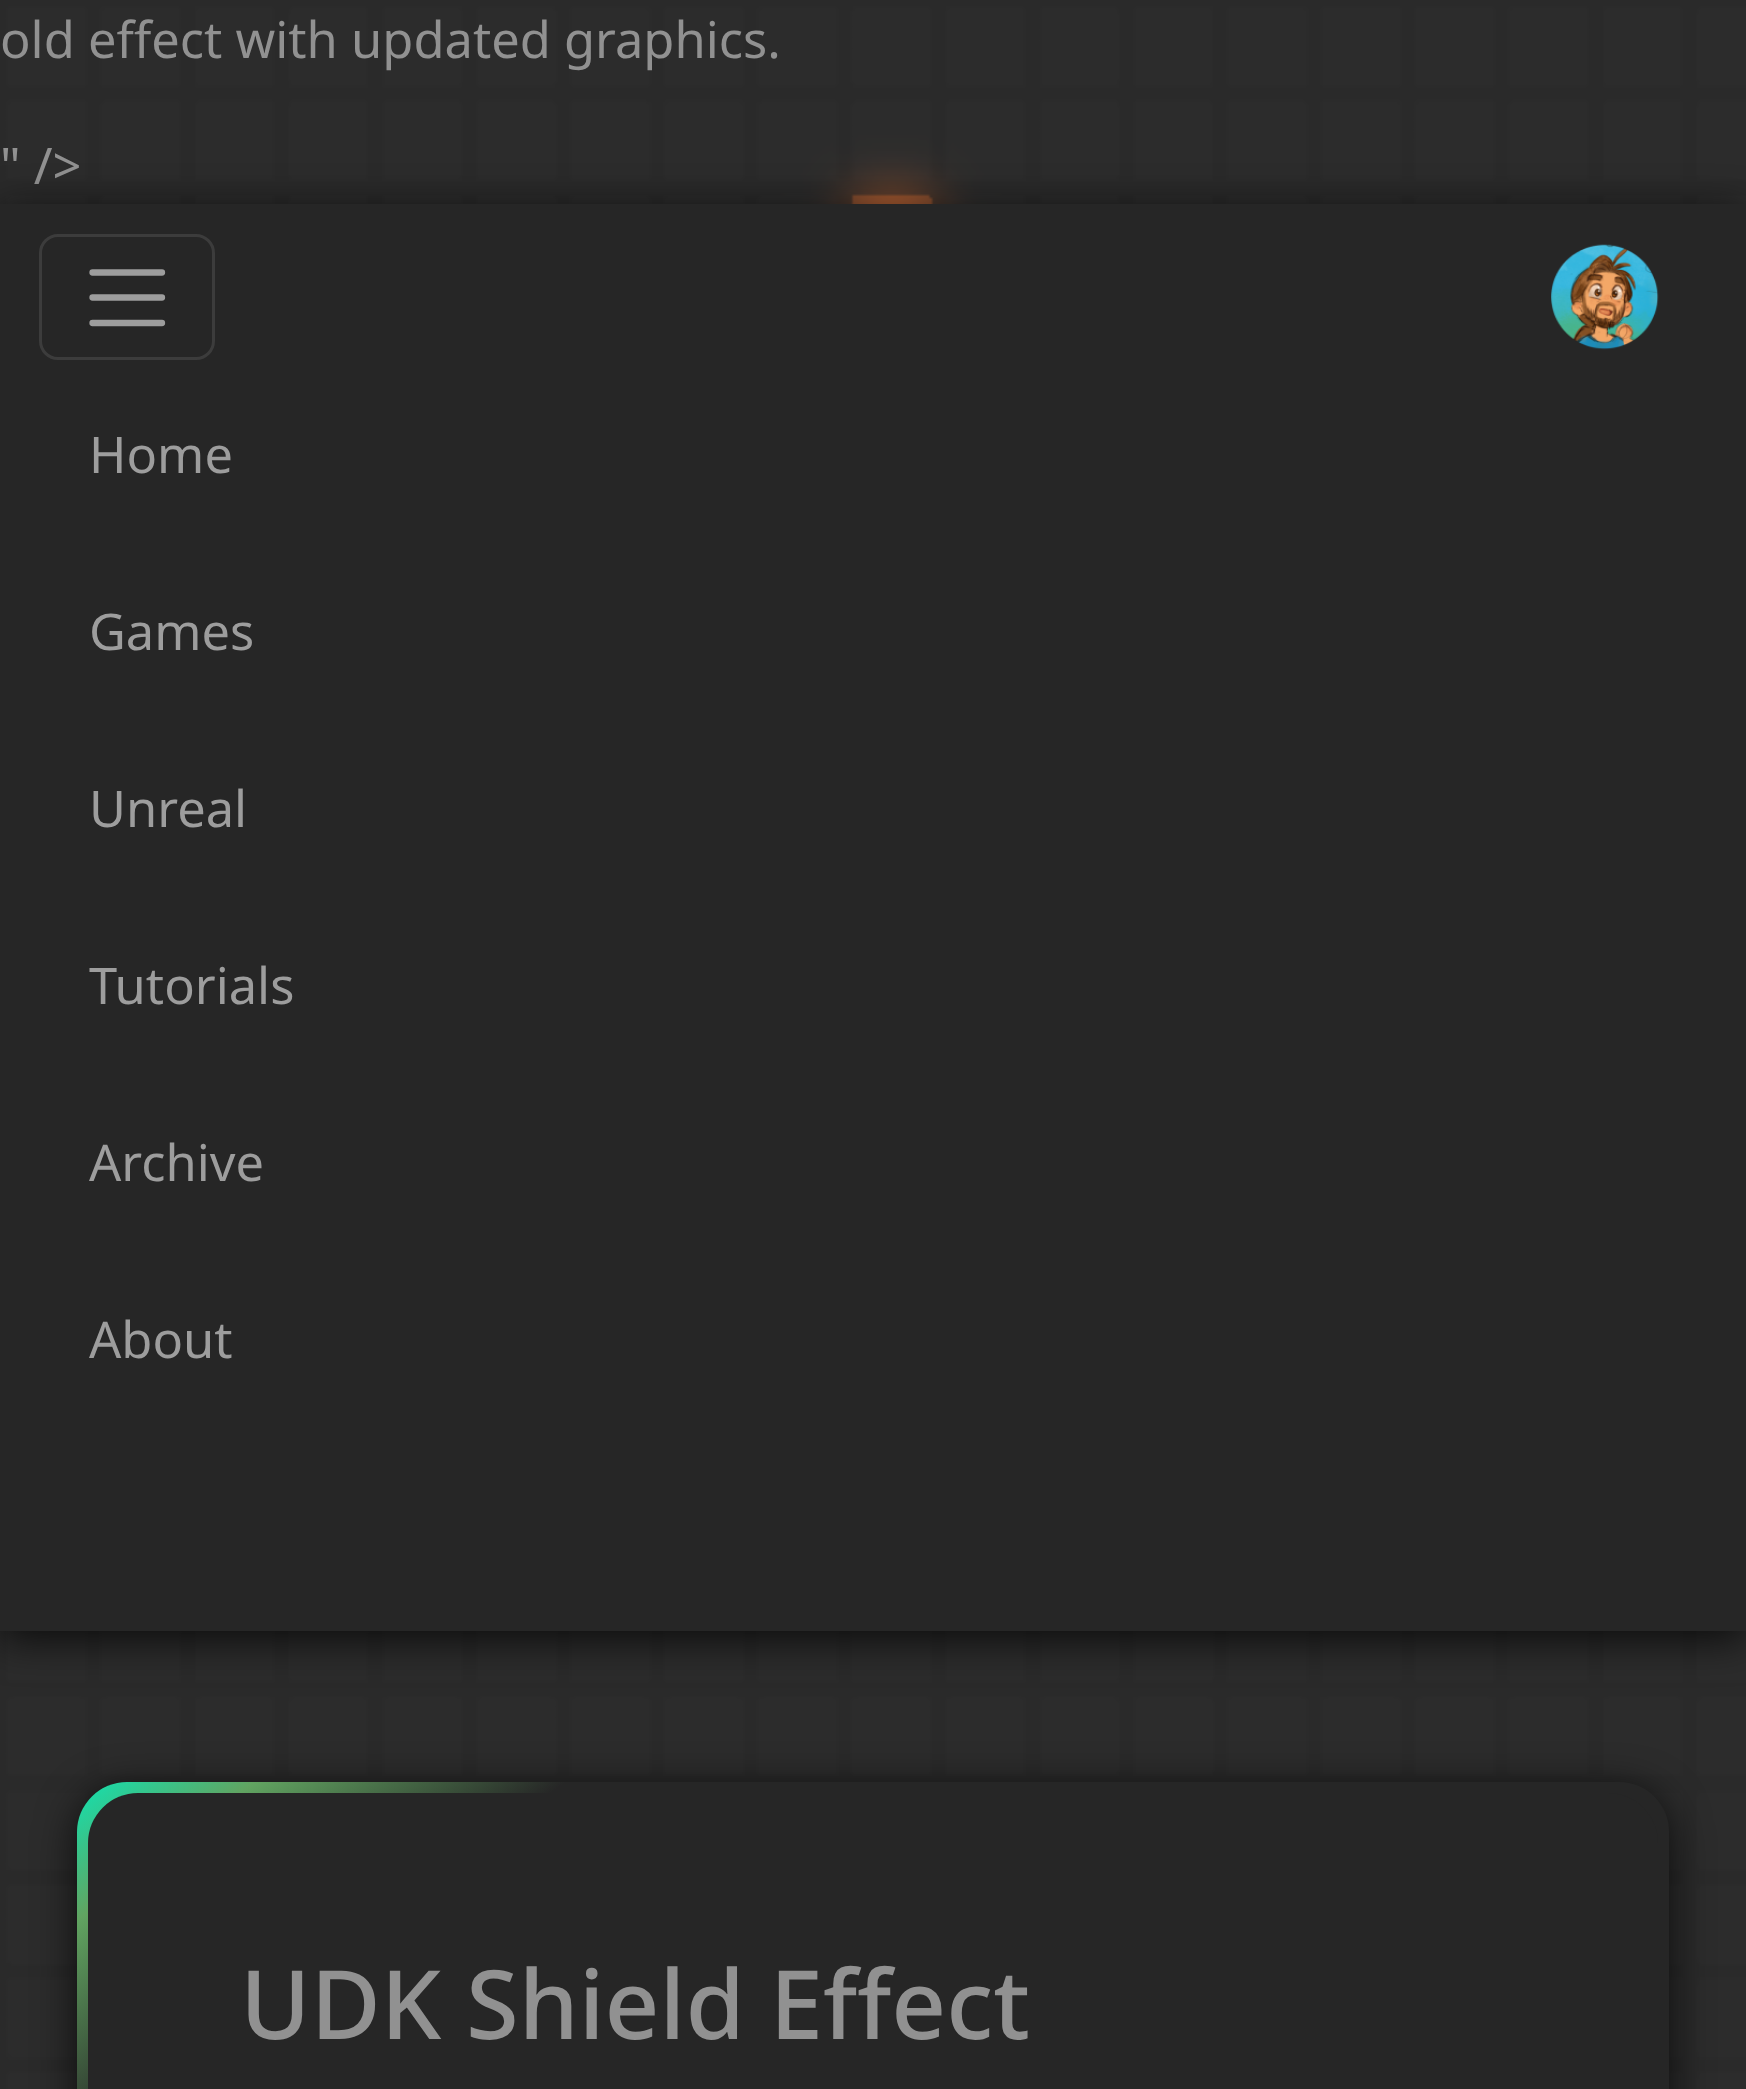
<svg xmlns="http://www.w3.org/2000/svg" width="1746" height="2089">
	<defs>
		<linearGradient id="g1" gradientUnits="userSpaceOnUse" x1="30" y1="1818" x2="1716" y2="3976"><stop offset="0" stop-color="#10E3B2" /><stop offset="0.04" stop-color="#61A461" /><stop offset="0.11" stop-color="#262626" /><stop offset="0.91" stop-color="#262626" /><stop offset="0.96" stop-color="#FF4C00" /><stop offset="1" stop-color="#FF0041" /></linearGradient>
	</defs>
	<rect width="100%" height="100%" fill="#FFFFFF" />
	<image x="0" y="0" width="1746" height="2089" href="assets/img1.png" />
	<g font-family="Noto Sans" font-size="50.6" fill="#919191">
		<text x="0" y="58">old effect with updated graphics.</text>
		<text x="0" y="184">" /&gt;</text>
	</g>
	<rect x="0" y="212" width="1746" height="1427" fill="#000000" fill-opacity="0.75" filter="blur(20.5px)" />
	<rect x="0" y="204" width="1746" height="1427" fill="#262626" />
	<rect x="40.5" y="235.5" width="173" height="123" rx="17.5" fill="none" stroke="#3C3C3C" stroke-width="3" />
	<path d="M92.5 272.5H162M92.5 297.5H162M92.5 323H162" fill="none" stroke="#9D9D9D" stroke-width="6.3" stroke-linecap="round" />
	<image x="1551" y="244" width="108" height="106" href="assets/img2.png" />
	<g font-family="Noto Sans" font-size="50.6" fill="#9D9D9D">
		<text x="89" y="473">Home</text>
		<text x="89" y="650">Games</text>
		<text x="89" y="827">Unreal</text>
		<text x="89" y="1004">Tutorials</text>
		<text x="89" y="1181">Archive</text>
		<text x="89" y="1358">About</text>
	</g>
	<rect x="77" y="1790" width="1592" height="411" rx="50" fill="#000000" fill-opacity="0.75" filter="blur(20.5px)" />
	<rect x="77" y="1782" width="1592" height="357" rx="50" fill="url(#g1)" />
	<rect x="88" y="1793" width="1570" height="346" rx="50" fill="#262626" />
	<text x="240" y="2039" font-family="Noto Sans" font-size="95.75" font-weight="500" fill="#919191">UDK Shield Effect</text>
</svg>
